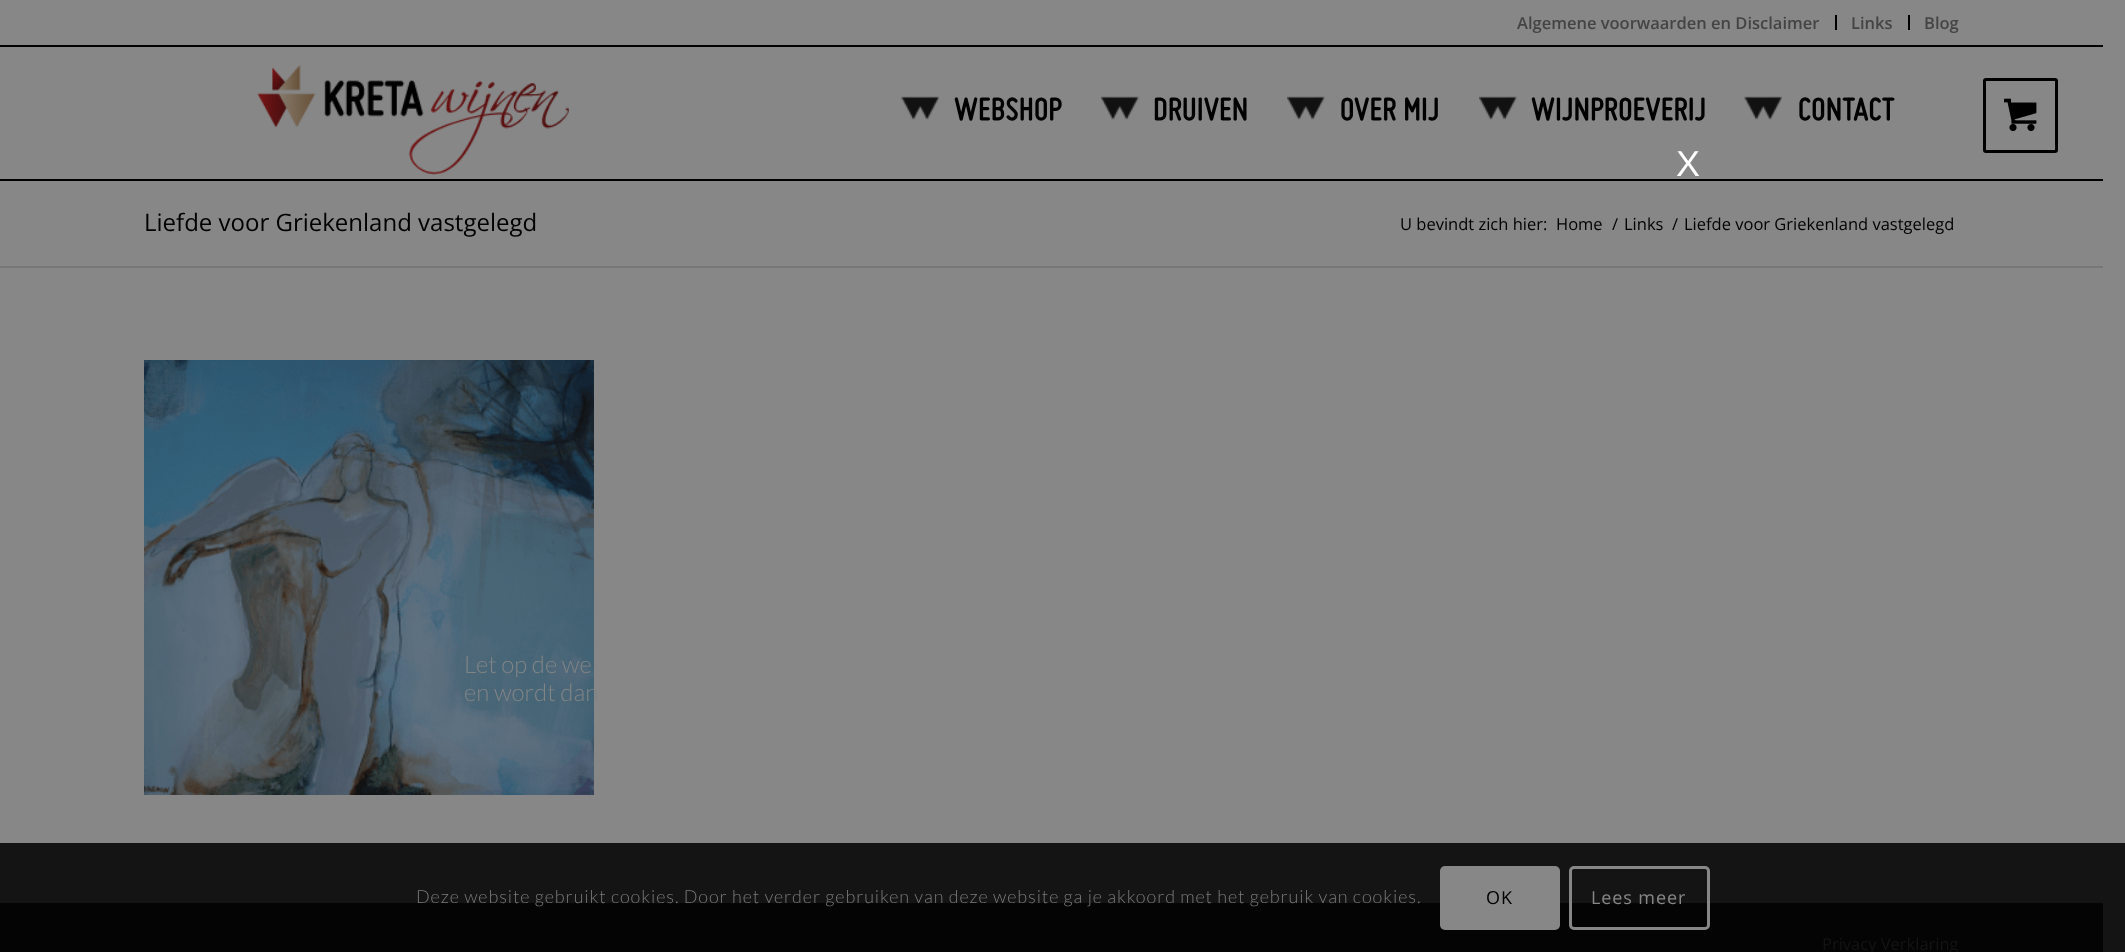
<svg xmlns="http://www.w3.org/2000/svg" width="2125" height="952">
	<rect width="100%" height="100%" fill="#878787" />
	<rect x="0" y="843" width="2125" height="109" fill="#141414" />
	<rect x="0" y="45" width="2103" height="2" fill="#000000" />
	<rect x="1835" y="15" width="2" height="15" fill="#000000" />
	<text x="1517" y="29" font-family="Open Sans" font-size="16.5" font-weight="600" fill="#444444">Algemene voorwaarden en Disclaimer</text>
	<rect x="1908" y="15" width="2" height="15" fill="#000000" />
	<g font-family="Open Sans" font-size="16.5" font-weight="600" fill="#444444">
		<text x="1851" y="29">Links</text>
		<text x="1924" y="29">Blog</text>
	</g>
	<rect x="0" y="179" width="2103" height="2" fill="#000000" />
	<image x="257" y="64" width="312" height="111" href="assets/img1.png" />
	<image x="901" y="96" width="38" height="24" href="assets/img2.png" />
	<text x="954" y="120" font-family="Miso" font-size="34.5" font-weight="700" fill="#000000">WEBSHOP</text>
	<image x="1101" y="96" width="38" height="24" href="assets/img3.png" />
	<text x="1153" y="120" font-family="Miso" font-size="34.5" font-weight="700" fill="#000000">DRUIVEN</text>
	<image x="1287" y="96" width="38" height="24" href="assets/img4.png" />
	<text x="1340" y="120" font-family="Miso" font-size="34.5" font-weight="700" fill="#000000">OVER MIJ</text>
	<image x="1479" y="96" width="38" height="24" href="assets/img3.png" />
	<text x="1531" y="120" font-family="Miso" font-size="34.5" font-weight="700" fill="#000000">WIJNPROEVERIJ</text>
	<image x="1744" y="96" width="38" height="24" href="assets/img2.png" />
	<text x="1798" y="120" font-family="Miso" font-size="34.5" font-weight="700" fill="#000000">CONTACT</text>
	<rect x="1984.5" y="79.5" width="72" height="72" rx="1.5" fill="none" stroke="#000000" stroke-width="3" />
	<image x="2004" y="98" width="33" height="34" href="assets/img5.png" />
	<text x="144" y="231" font-family="Open Sans" font-size="24" fill="#000000">Liefde voor Griekenland vastgelegd</text>
	<g font-family="Open Sans" font-size="16.5" fill="#000000">
		<text x="1400" y="230">U bevindt zich hier:</text>
		<text x="1556" y="230">Home</text>
		<text x="1612" y="230">/</text>
		<text x="1624" y="230">Links</text>
		<text x="1672" y="230">/</text>
		<text x="1684" y="230">Liefde voor Griekenland vastgelegd</text>
	</g>
	<rect x="0" y="266" width="2103" height="2" fill="#777777" />
	<image x="144" y="360" width="450" height="435" href="assets/img6.png" />
	<rect x="0" y="905" width="2103" height="47" fill="#040404" />
	<rect x="0" y="903" width="2103" height="2" fill="#050505" />
	<text x="1822" y="950" font-family="Open Sans" font-size="16.5" fill="#141414">Privacy Verklaring</text>
	<text x="1676" y="176" font-family="Liberation Sans" font-size="36" fill="#FFFFFF">X</text>
	<g font-family="Lato" font-size="24" font-weight="300" fill="#808486">
		<text x="464" y="673">Let op de we</text>
		<text x="464" y="701">en wordt dan</text>
	</g>
	<text x="416" y="903" font-family="Lato" font-size="18" font-weight="300" letter-spacing="0.9" fill="#7B7B7B">Deze website gebruikt cookies. Door het verder gebruiken van deze website ga je akkoord met het gebruik van cookies.</text>
	<rect x="1440" y="866" width="120" height="64" rx="5" fill="#878787" />
	<text x="1486" y="904" font-family="Open Sans" font-size="18" letter-spacing="0.9" fill="#000000">OK</text>
	<rect x="1570.5" y="867.5" width="138" height="61" rx="3.5" fill="none" stroke="#878787" stroke-width="3" />
	<text x="1591" y="904" font-family="Open Sans" font-size="18" letter-spacing="0.9" fill="#878787">Lees meer</text>
</svg>
